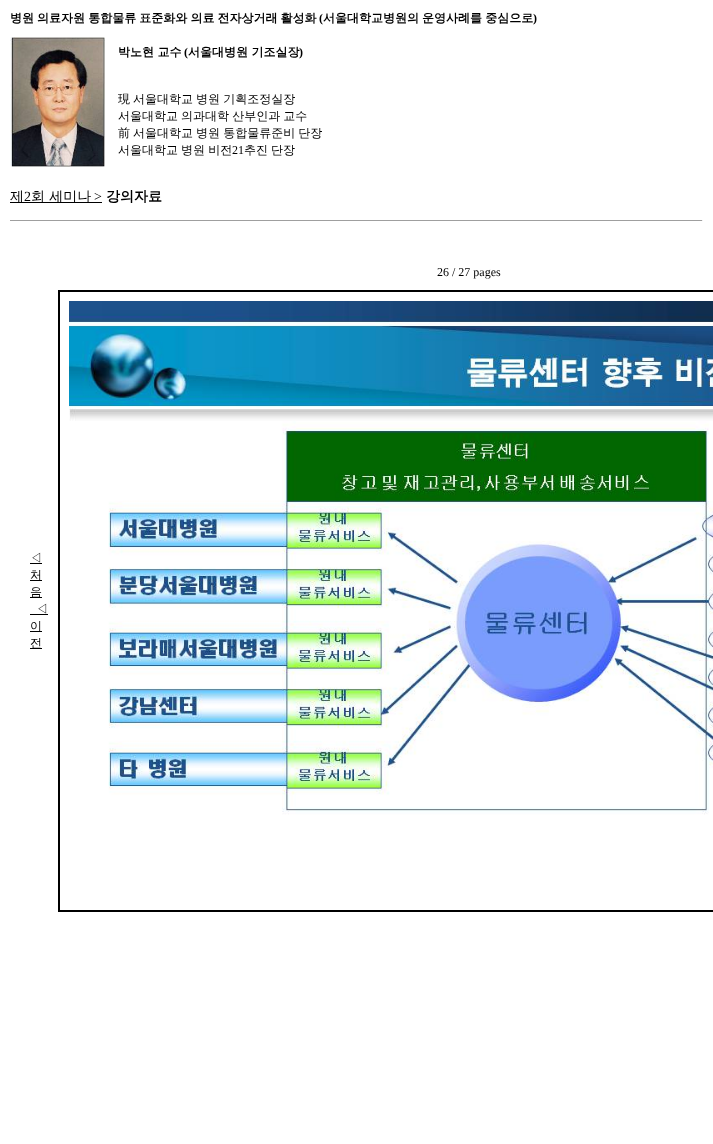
<svg xmlns="http://www.w3.org/2000/svg" width="713" height="1144">
	<rect width="100%" height="100%" fill="#FFFFFF" />
	<text x="10" y="22" word-spacing="-0.5" font-family="WenQuanYi Zen Hei" font-size="12" font-weight="700" fill="#000000">병원 의료자원 통합물류 표준화와 의료 전자상거래 활성화</text>
	<text x="319" y="22" font-family="Liberation Serif" font-size="12" font-weight="700" fill="#000000">(</text>
	<text x="323" y="22" word-spacing="-0.5" font-family="WenQuanYi Zen Hei" font-size="12" font-weight="700" fill="#000000">서울대학교병원의 운영사례를 중심으로</text>
	<text x="533" y="22" font-family="Liberation Serif" font-size="12" font-weight="700" fill="#000000">)</text>
	<image x="10" y="37" width="95" height="130" href="assets/img1.png" />
	<text x="118" y="56" font-family="WenQuanYi Zen Hei" font-size="12" font-weight="700" fill="#000000">박노현 교수</text>
	<text x="184" y="56" font-family="Liberation Serif" font-size="12" font-weight="700" fill="#000000">(</text>
	<text x="188" y="56" font-family="WenQuanYi Zen Hei" font-size="12" font-weight="700" fill="#000000">서울대병원 기조실장</text>
	<text x="299" y="56" font-family="Liberation Serif" font-size="12" font-weight="700" fill="#000000">)</text>
	<g font-family="WenQuanYi Zen Hei" font-size="12" font-weight="500" fill="#000000">
		<text x="118" y="103">現</text>
		<text x="133" y="103" word-spacing="-0.5">서울대학교 병원 기획조정실장</text>
		<text x="118" y="120" word-spacing="-0.5">서울대학교 의과대학 산부인과 교수</text>
		<text x="118" y="137">前</text>
		<text x="133" y="137" word-spacing="-0.5">서울대학교 병원 통합물류준비 단장</text>
		<text x="118" y="154" word-spacing="-0.5">서울대학교 병원 비전</text>
	</g>
	<text x="232" y="154" font-family="Liberation Serif" font-size="12" fill="#000000">21</text>
	<text x="244" y="154" word-spacing="-0.5" font-family="WenQuanYi Zen Hei" font-size="12" font-weight="500" fill="#000000">추진 단장</text>
	<rect x="10" y="202" width="92" height="1" fill="#000000" />
	<text x="10" y="201" font-family="WenQuanYi Zen Hei" font-size="14" font-weight="500" fill="#000000">제</text>
	<text x="24" y="201" font-family="Liberation Serif" font-size="14" fill="#000000">2</text>
	<text x="31" y="201" font-family="WenQuanYi Zen Hei" font-size="14" font-weight="500" fill="#000000">회 세미나</text>
	<text x="94" y="201" font-family="Liberation Serif" font-size="14" fill="#000000">&gt;</text>
	<text x="106" y="201" font-family="WenQuanYi Zen Hei" font-size="14" font-weight="700" fill="#000000">강의자료</text>
	<rect x="10" y="220" width="693" height="1" fill="#9F9F9F" />
	<rect x="702" y="220" width="1" height="1" fill="#EEEEEE" />
	<text x="437" y="276" font-family="Liberation Serif" font-size="12" fill="#000000">26 / 27 pages</text>
	<text x="30" y="562" font-family="WenQuanYi Zen Hei" font-size="12" font-weight="500" fill="#000000">◁</text>
	<rect x="30" y="563" width="12" height="1" fill="#000000" />
	<rect x="30" y="580" width="12" height="1" fill="#000000" />
	<text x="30" y="579" font-family="WenQuanYi Zen Hei" font-size="12" font-weight="500" fill="#000000">처</text>
	<rect x="30" y="597" width="12" height="1" fill="#000000" />
	<g font-family="WenQuanYi Zen Hei" font-size="12" font-weight="500" fill="#000000">
		<text x="30" y="596">음</text>
		<text x="36" y="613">◁</text>
	</g>
	<rect x="30" y="614" width="18" height="1" fill="#000000" />
	<rect x="30" y="631" width="12" height="1" fill="#000000" />
	<text x="30" y="630" font-family="WenQuanYi Zen Hei" font-size="12" font-weight="500" fill="#000000">이</text>
	<rect x="30" y="648" width="12" height="1" fill="#000000" />
	<text x="30" y="647" font-family="WenQuanYi Zen Hei" font-size="12" font-weight="500" fill="#000000">전</text>
	<rect x="59" y="291" width="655" height="620" fill="none" stroke="#000000" stroke-width="2" />
	<image x="69" y="301" width="644" height="514" href="assets/img2.png" />
</svg>
